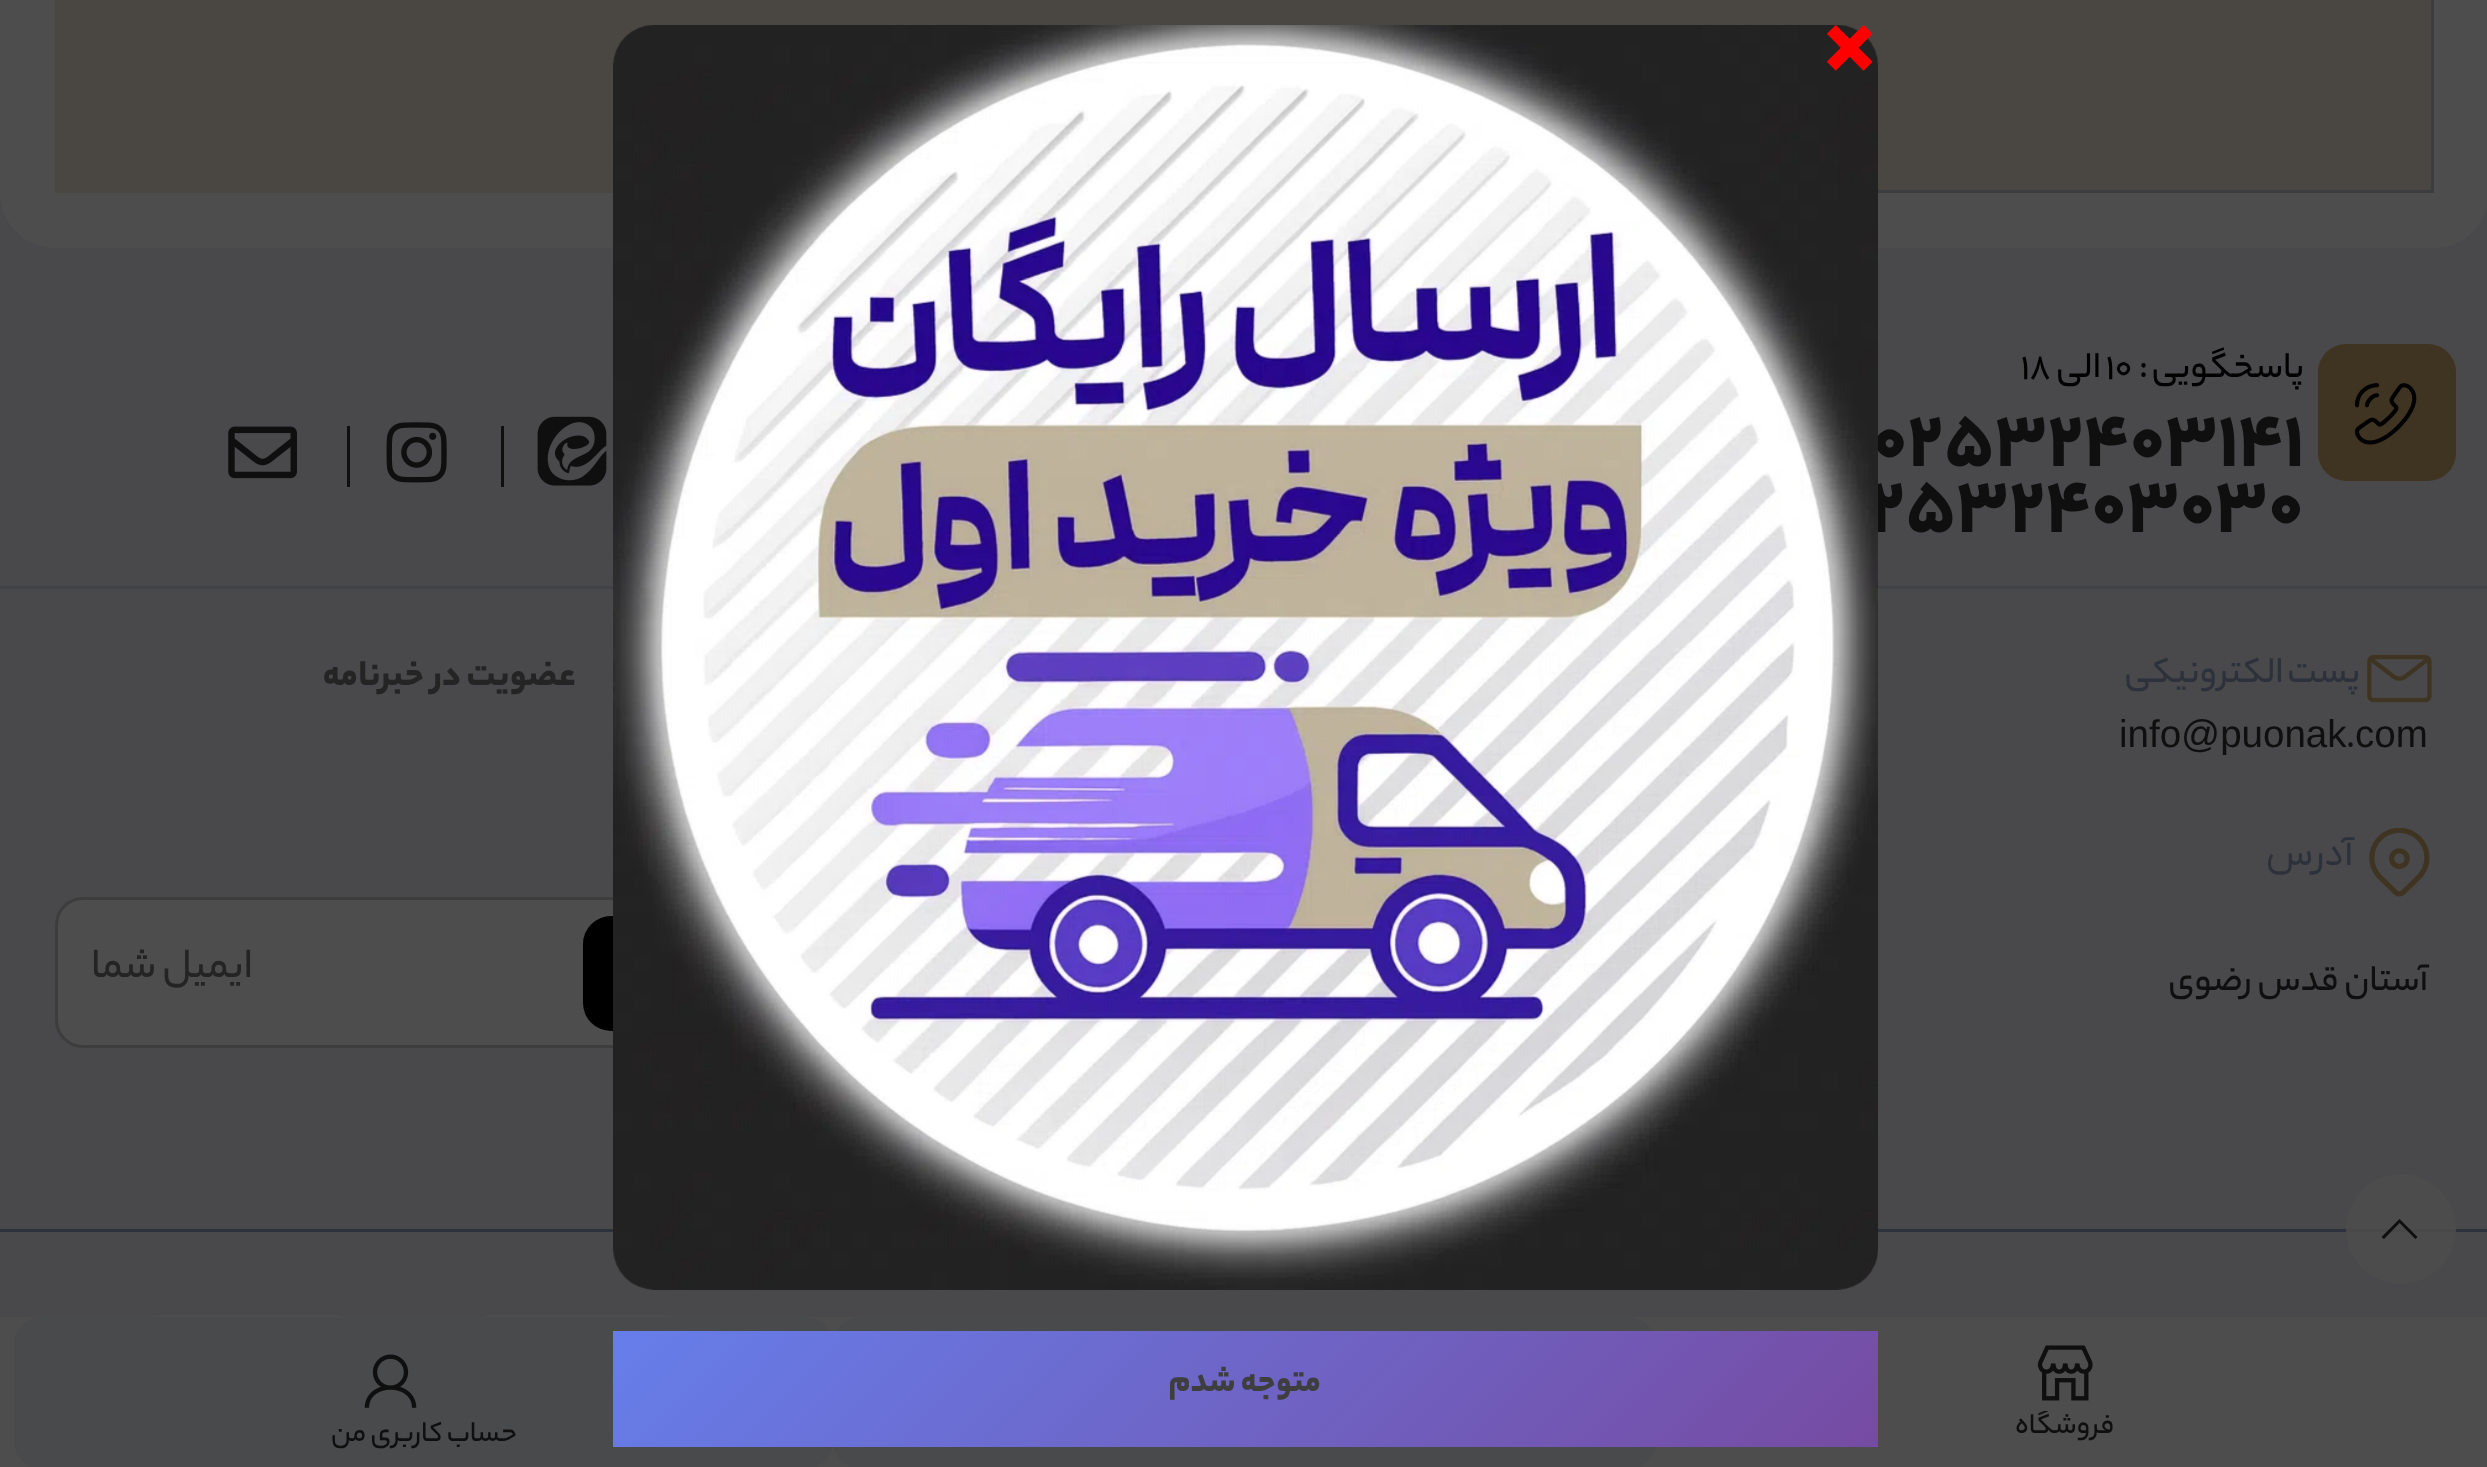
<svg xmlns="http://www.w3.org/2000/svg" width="2487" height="1467">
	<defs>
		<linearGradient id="g1" gradientUnits="userSpaceOnUse" x1="901" y1="1044" x2="1591" y2="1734"><stop offset="0" stop-color="#667EEA" /><stop offset="1" stop-color="#764BA2" /></linearGradient>
		<clipPath id="clip1"><rect x="1683" y="1411" width="765" height="36" /></clipPath>
	</defs>
	<rect width="100%" height="100%" fill="#49494B" />
	<rect x="27.5" y="-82.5" width="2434" height="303" rx="27.5" fill="none" stroke="#4D4D4D" stroke-width="55" />
	<rect x="55" y="0" width="2376" height="193" fill="#4A4742" />
	<rect x="0" y="586" width="2487" height="3" fill="#414246" />
	<g font-family="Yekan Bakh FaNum" font-size="82.5" font-weight="900" fill="#0F0F0F">
		<text x="1872" y="461">02532403141</text>
		<text x="1869" y="527">2532403030</text>
	</g>
	<rect x="56.5" y="898.5" width="786" height="148" rx="26.5" fill="#4D4D4D" stroke="#3D3D3D" stroke-width="3" />
	<rect x="583" y="916" width="248" height="115" rx="28" fill="#000000" />
	<rect x="0" y="1229" width="2487" height="3" fill="#2C313B" />
	<image x="613" y="25" width="1265" height="1265" href="assets/img1.png" />
	<text x="1822" y="70" font-family="Yekan Bakh FaNum" font-size="110" font-weight="900" fill="#FF0000">×</text>
	<rect x="440" y="1315" width="275" height="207" rx="55" fill="#4D4D4D" />
	<rect x="110" y="1315" width="275" height="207" rx="55" fill="#4D4D4D" />
	<rect x="0" y="1317" width="2487" height="150" fill="#4D4D4D" />
	<rect x="833" y="1317" width="823" height="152" rx="28" fill="#494A4C" />
	<rect x="14" y="1317" width="819" height="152" rx="28" fill="#494A4C" />
	<rect x="613" y="1331" width="1265" height="116" fill="url(#g1)" />
	<text x="1321" y="1391" font-family="Yekan Bakh FaNum" font-size="35.75" font-weight="900" direction="rtl" fill="#3E3E3E">متوجه شدم</text>
	<rect x="2431" y="0" width="3" height="193" fill="#3B3D40" />
	<rect x="1878" y="190" width="556" height="3" fill="#3B3D40" />
	<rect x="2318" y="344" width="138" height="137" rx="28" fill="#3F3421" />
	<image x="2354" y="383" width="63" height="62" href="assets/img2.png" />
	<text x="2304" y="377" word-spacing="-2" font-family="Yekan Bakh FaNum" font-size="38.5" font-weight="500" letter-spacing="0.75" direction="rtl" fill="#000000">پاسخگویی :</text>
	<text x="2106" y="377" font-family="Yekan Bakh FaNum" font-size="38.5" font-weight="500" letter-spacing="0.75" fill="#000000">10</text>
	<text x="2101" y="377" font-family="Yekan Bakh FaNum" font-size="38.5" font-weight="500" letter-spacing="0.75" direction="rtl" fill="#000000">الی</text>
	<text x="2021" y="377" font-family="Yekan Bakh FaNum" font-size="38.5" font-weight="500" letter-spacing="0.75" fill="#000000">18</text>
	<image x="537" y="416" width="70" height="70" href="assets/img3.png" />
	<rect x="501" y="426" width="3" height="61" fill="#0F0F0F" />
	<image x="386" y="422" width="61" height="61" href="assets/img4.png" />
	<rect x="347" y="426" width="3" height="61" fill="#0F0F0F" />
	<image x="228" y="426" width="69" height="53" href="assets/img5.png" />
	<image x="2367" y="654" width="65" height="49" href="assets/img6.png" />
	<text x="2360" y="682" word-spacing="-2" font-family="Yekan Bakh FaNum" font-size="38.5" font-weight="500" letter-spacing="0.75" direction="rtl" fill="#2C313B">پست الکترونیکی</text>
	<text x="2355" y="747" font-family="Liberation Sans" font-size="38.5" fill="#0F0F0F">com</text>
	<text x="2346" y="747" font-family="Yekan Bakh FaNum" font-size="38.5" font-weight="500" fill="#0F0F0F">.</text>
	<text x="2119" y="747" font-family="Liberation Sans" font-size="38.5" fill="#0F0F0F">info@puonak</text>
	<image x="2369" y="828" width="61" height="69" href="assets/img7.png" />
	<text x="2354" y="865" font-family="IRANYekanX" font-size="38.5" letter-spacing="0.75" direction="rtl" fill="#2C313B">آدرس</text>
	<text x="2428" y="990" font-family="Yekan Bakh FaNum" font-size="38.5" font-weight="500" direction="rtl" fill="#0F0F0F">آستان قدس رضوی</text>
	<text x="576" y="685" font-family="Yekan Bakh FaNum" font-size="38.5" font-weight="900" direction="rtl" fill="#242424">عضویت در خبرنامه</text>
	<text x="253" y="977" font-family="Yekan Bakh FaNum" font-size="44" font-weight="500" direction="rtl" fill="#242424">ایمیل شما</text>
	<circle cx="2401" cy="1229" r="55" fill="#4D4D4D" fill-opacity="0.9" />
	<path d="M2415.5 1239L2417.5 1237L2399.5 1219L2381.5 1237L2384 1239L2399.5 1223Z" fill="#0F0F0F" />
	<image x="2037" y="1345" width="56" height="56" href="assets/img8.png" />
	<g clip-path="url(#clip1)">
		<text x="2114" y="1433" font-family="Yekan Bakh FaNum" font-size="30.25" font-weight="500" direction="rtl" fill="#0F0F0F">فروشگاه</text>
	</g>
	<image x="364" y="1354" width="53" height="54" href="assets/img9.png" />
	<text x="517" y="1441" font-family="Yekan Bakh FaNum" font-size="30.25" font-weight="500" direction="rtl" fill="#0F0F0F">حساب کاربری من</text>
</svg>
